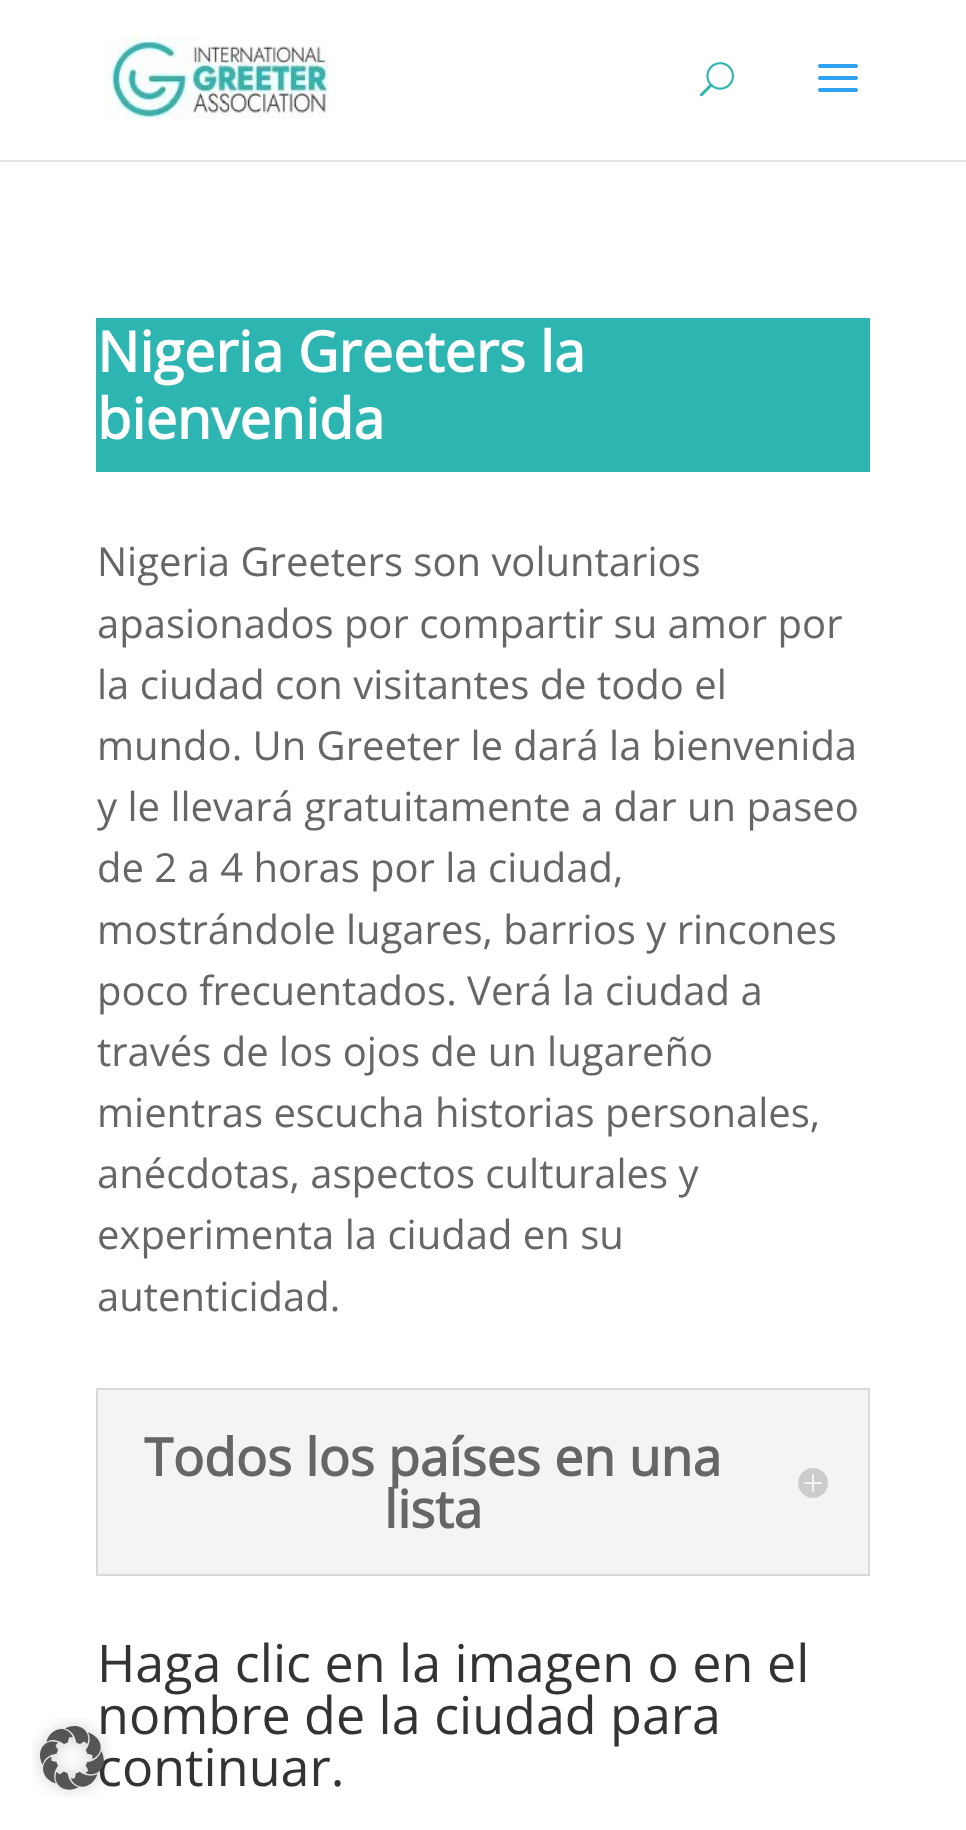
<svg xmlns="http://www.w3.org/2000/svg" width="966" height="1830">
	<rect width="100%" height="100%" fill="#FFFFFF" />
	<g font-family="Open Sans" font-size="52" fill="#333333">
		<text x="97" y="1734">nombre de la ciudad para</text>
		<text x="97" y="1786">continuar.</text>
	</g>
	<image x="32" y="1718" width="80" height="80" href="assets/img1.png" />
	<rect x="0" y="160" width="966" height="2" fill="#E6E6E6" />
	<image x="106" y="36" width="223" height="83" href="assets/img2.png" />
	<image x="699" y="62" width="35" height="35" href="assets/img3.png" />
	<image x="818" y="64" width="40" height="28" href="assets/img4.png" />
	<rect x="96" y="318" width="774" height="154" fill="#2DB5B2" />
	<g font-family="Open Sans" font-size="56" font-weight="700" fill="#FFFFFF">
		<text x="97" y="372">Nigeria Greeters la</text>
		<text x="97" y="439">bienvenida</text>
	</g>
	<g font-family="Open Sans" font-size="40" fill="#666666">
		<text x="97" y="576">Nigeria Greeters son voluntarios</text>
		<text x="97" y="638">apasionados por compartir su amor por</text>
		<text x="97" y="699">la ciudad con visitantes de todo el</text>
		<text x="97" y="760">mundo. Un Greeter le dará la bienvenida</text>
		<text x="97" y="821">y le llevará gratuitamente a dar un paseo</text>
		<text x="97" y="882">de 2 a 4 horas por la ciudad,</text>
		<text x="97" y="944">mostrándole lugares, barrios y rincones</text>
		<text x="97" y="1005">poco frecuentados. Verá la ciudad a</text>
		<text x="97" y="1066">través de los ojos de un lugareño</text>
		<text x="97" y="1127">mientras escucha historias personales,</text>
		<text x="97" y="1188">anécdotas, aspectos culturales y</text>
		<text x="97" y="1249">experimenta la ciudad en su</text>
		<text x="97" y="1311">autenticidad.</text>
	</g>
	<rect x="97" y="1389" width="772" height="186" fill="#F4F4F4" stroke="#D9D9D9" stroke-width="2" />
	<text x="144" y="1476" font-family="Open Sans" font-size="52" font-weight="700" fill="#666666">Todos los países en una</text>
	<image x="798" y="1468" width="30" height="30" href="assets/img5.png" />
	<text x="384" y="1528" font-family="Open Sans" font-size="52" font-weight="700" fill="#666666">lista</text>
	<text x="97" y="1682" font-family="Open Sans" font-size="52" fill="#333333">Haga clic en la imagen o en el</text>
</svg>
